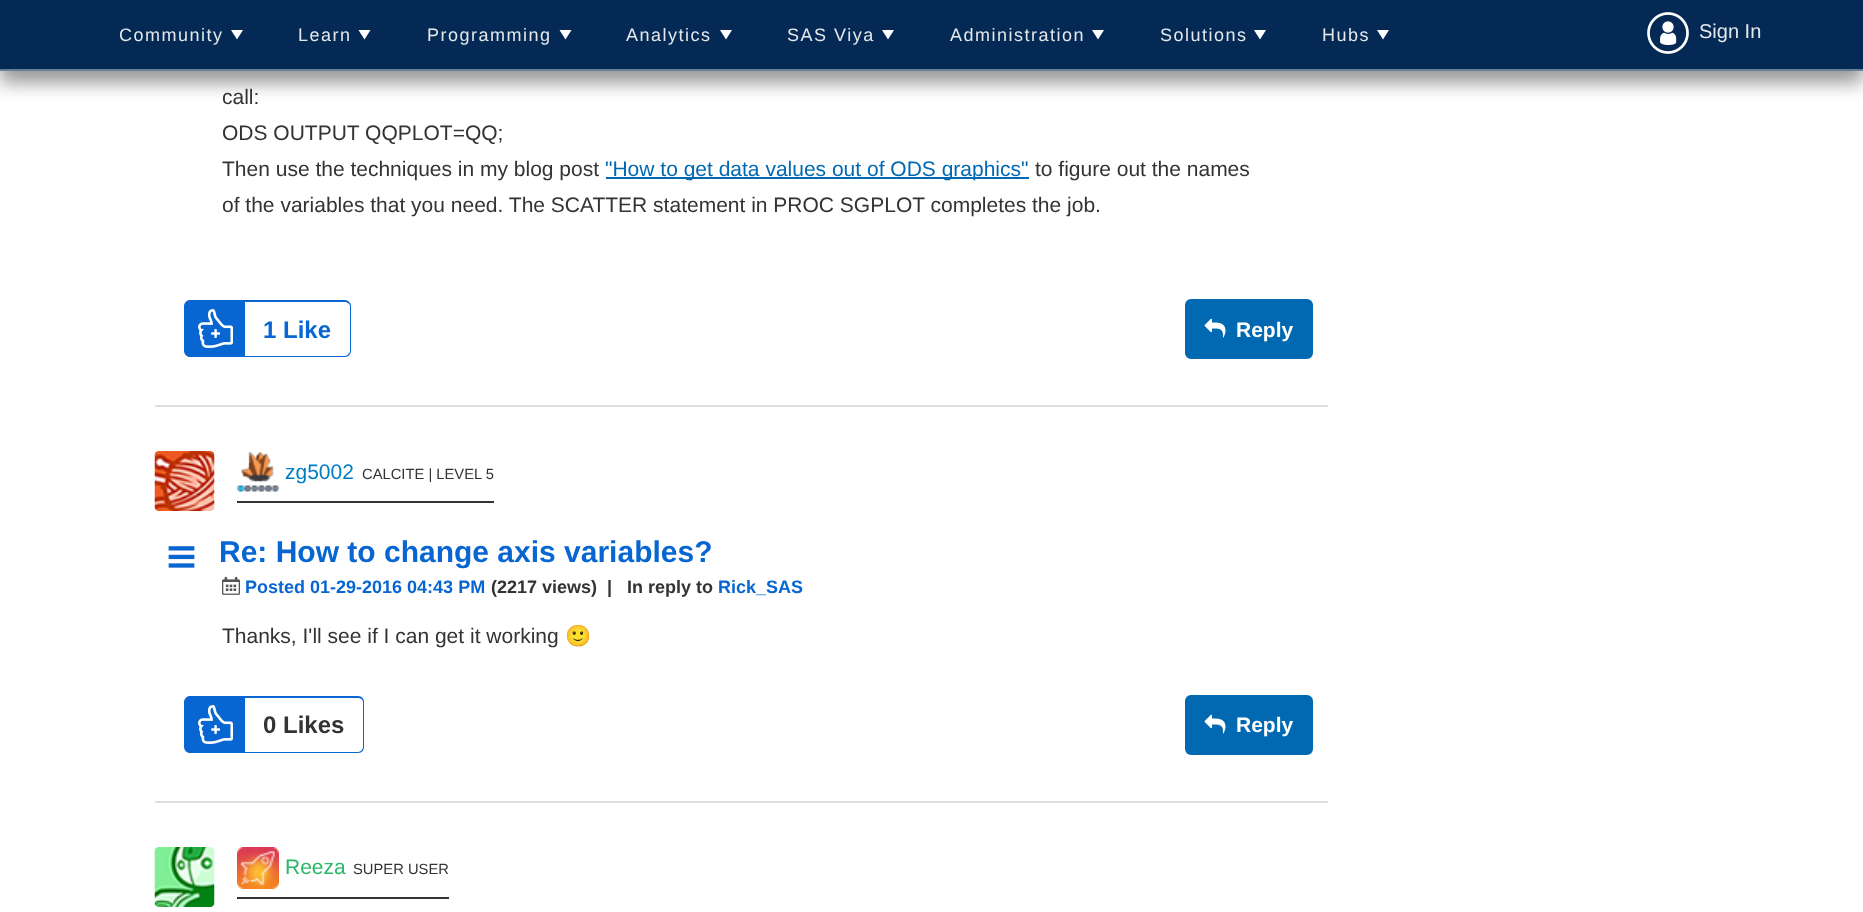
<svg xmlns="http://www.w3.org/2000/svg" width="1863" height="912">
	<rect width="100%" height="100%" fill="#FFFFFF" />
	<rect x="0" y="12" width="1863" height="71" fill="#000000" fill-opacity="0.4" filter="blur(9px)" />
	<rect x="0" y="0" width="1863" height="69" fill="#032954" />
	<rect x="0" y="69" width="1863" height="2" fill="#687F98" />
	<text x="119" y="41" font-family="Liberation Sans" font-size="18" letter-spacing="1.5" fill="#E4E8EA">Community</text>
	<path d="M237 39.5L231 30H243Z" fill="#FFFFFF" />
	<text x="298" y="41" font-family="Liberation Sans" font-size="18" letter-spacing="1.5" fill="#E4E8EA">Learn</text>
	<path d="M364.5 39.5L358.5 30H370.5Z" fill="#FFFFFF" />
	<text x="427" y="41" font-family="Liberation Sans" font-size="18" letter-spacing="1.5" fill="#E4E8EA">Programming</text>
	<path d="M565.5 39.5L559.5 30H571.5Z" fill="#FFFFFF" />
	<text x="626" y="41" font-family="Liberation Sans" font-size="18" letter-spacing="1.5" fill="#E4E8EA">Analytics</text>
	<path d="M726 39.5L720 30H732Z" fill="#FFFFFF" />
	<text x="787" y="41" font-family="Liberation Sans" font-size="18" letter-spacing="1.5" fill="#E4E8EA">SAS Viya</text>
	<path d="M888 39.5L882 30H894Z" fill="#FFFFFF" />
	<text x="950" y="41" font-family="Liberation Sans" font-size="18" letter-spacing="1.5" fill="#E4E8EA">Administration</text>
	<path d="M1098 39.5L1092 30H1104Z" fill="#FFFFFF" />
	<text x="1160" y="41" font-family="Liberation Sans" font-size="18" letter-spacing="1.5" fill="#E4E8EA">Solutions</text>
	<path d="M1260 39.5L1254 30H1266Z" fill="#FFFFFF" />
	<text x="1322" y="41" font-family="Liberation Sans" font-size="18" letter-spacing="1.5" fill="#E4E8EA">Hubs</text>
	<path d="M1383 39.5L1377 30H1389Z" fill="#FFFFFF" />
	<image x="1647" y="12" width="42" height="42" href="assets/img1.png" />
	<text x="1699" y="38" font-family="Liberation Sans" font-size="20" fill="#E4E8EA">Sign In</text>
	<rect x="155" y="405" width="1173" height="2" fill="#DEDEDE" />
	<g font-family="Liberation Sans" font-size="21" fill="#333333">
		<text x="222" y="104">call:</text>
		<text x="222" y="140">ODS OUTPUT QQPLOT=QQ;</text>
		<text x="222" y="176">Then use the techniques in my blog post</text>
	</g>
	<rect x="606" y="177" width="423" height="2" fill="#0168B2" />
	<text x="605" y="176" font-family="Liberation Sans" font-size="21" fill="#0168B2">"How to get data values out of ODS graphics"</text>
	<g font-family="Liberation Sans" font-size="21" fill="#333333">
		<text x="1035" y="176">to figure out the names</text>
		<text x="222" y="212">of the variables that you need. The SCATTER statement in PROC SGPLOT completes the job.</text>
	</g>
	<path d="M244 300H345C348 300 351 303 351 306V351C351 354 348 357 345 357H244ZM244 302H345C347 302 350 304 350 306V351C350 353 347 356 345 356H244Z" fill="#0766D1" fill-rule="evenodd" />
	<path d="M191 300H245V357H191C187.5 357 185 354.5 185 351V306C185 302.5 187.5 300 191 300Z" fill="#0766D1" />
	<image x="198" y="309" width="35" height="39" href="assets/img2.png" />
	<path d="M190 300H244V357H190C187 357 184 354 184 351V306C184 303 187 300 190 300ZM190 302H244V356H190C188 356 186 353 186 351V306C186 304 188 302 190 302Z" fill="#0766D1" fill-rule="evenodd" />
	<text x="263" y="338" font-family="Liberation Sans" font-size="24" font-weight="700" fill="#0766D1">1 Like</text>
	<rect x="1186" y="300" width="126" height="58" rx="5" fill="#0168B2" stroke="#0168B2" stroke-width="2" />
	<image x="1204" y="318" width="22" height="20" href="assets/img3.png" />
	<text x="1236" y="337" font-family="Liberation Sans" font-size="21" font-weight="700" fill="#FFFFFF">Reply</text>
	<rect x="155" y="801" width="1173" height="2" fill="#DEDEDE" />
	<image x="154" y="451" width="61" height="60" href="assets/img4.png" />
	<rect x="237" y="501" width="257" height="2" fill="#333333" />
	<image x="237" y="451" width="42" height="41" href="assets/img5.png" />
	<text x="285" y="479" font-family="Liberation Sans" font-size="21" fill="#007DC3">zg5002</text>
	<text x="362" y="479" font-family="Liberation Sans" font-size="14.75" fill="#333333">CALCITE | LEVEL 5</text>
	<image x="168" y="546" width="27" height="22" href="assets/img6.png" />
	<text x="219" y="562" font-family="Liberation Sans" font-size="30" font-weight="700" fill="#0766D1">Re: How to change axis variables?</text>
	<image x="222" y="576" width="18" height="19" href="assets/img7.png" />
	<text x="245" y="593" font-family="Liberation Sans" font-size="18" font-weight="700" fill="#0766D1">Posted 01-29-2016 04:43 PM</text>
	<g font-family="Liberation Sans" font-size="18" font-weight="700" fill="#333333">
		<text x="491" y="593">(2217 views)</text>
		<text x="607" y="593" xml:space="preserve">|   In reply to</text>
	</g>
	<text x="718" y="593" font-family="Liberation Sans" font-size="18" font-weight="700" fill="#0766D1">Rick_SAS</text>
	<text x="222" y="643" font-family="Liberation Sans" font-size="21" fill="#333333">Thanks, I'll see if I can get it working</text>
	<text x="565" y="643" font-family="Noto Color Emoji" font-size="21" fill="#333333">🙂</text>
	<path d="M244 696H358C362 696 364 699 364 702V747C364 750 362 753 358 753H244ZM244 698H358C361 698 363 700 363 702V747C363 749 361 752 358 752H244Z" fill="#0766D1" fill-rule="evenodd" />
	<path d="M191 696H245V753H191C187.5 753 185 750.5 185 747V702C185 698.5 187.5 696 191 696Z" fill="#0766D1" />
	<image x="198" y="705" width="35" height="39" href="assets/img2.png" />
	<path d="M190 696H244V753H190C187 753 184 750 184 747V702C184 699 187 696 190 696ZM190 698H244V752H190C188 752 186 749 186 747V702C186 700 188 698 190 698Z" fill="#0766D1" fill-rule="evenodd" />
	<text x="263" y="733" font-family="Liberation Sans" font-size="24" font-weight="700" fill="#333333">0 Likes</text>
	<rect x="1186" y="696" width="126" height="58" rx="5" fill="#0168B2" stroke="#0168B2" stroke-width="2" />
	<image x="1204" y="714" width="22" height="20" href="assets/img3.png" />
	<text x="1236" y="732" font-family="Liberation Sans" font-size="21" font-weight="700" fill="#FFFFFF">Reply</text>
	<image x="154" y="847" width="61" height="60" href="assets/img8.png" />
	<rect x="237" y="897" width="212" height="2" fill="#333333" />
	<image x="237" y="847" width="42" height="42" href="assets/img9.png" />
	<text x="285" y="874" font-family="Liberation Sans" font-size="21" fill="#29B869">Reeza</text>
	<text x="353" y="874" font-family="Liberation Sans" font-size="14.75" fill="#333333">SUPER USER</text>
</svg>
